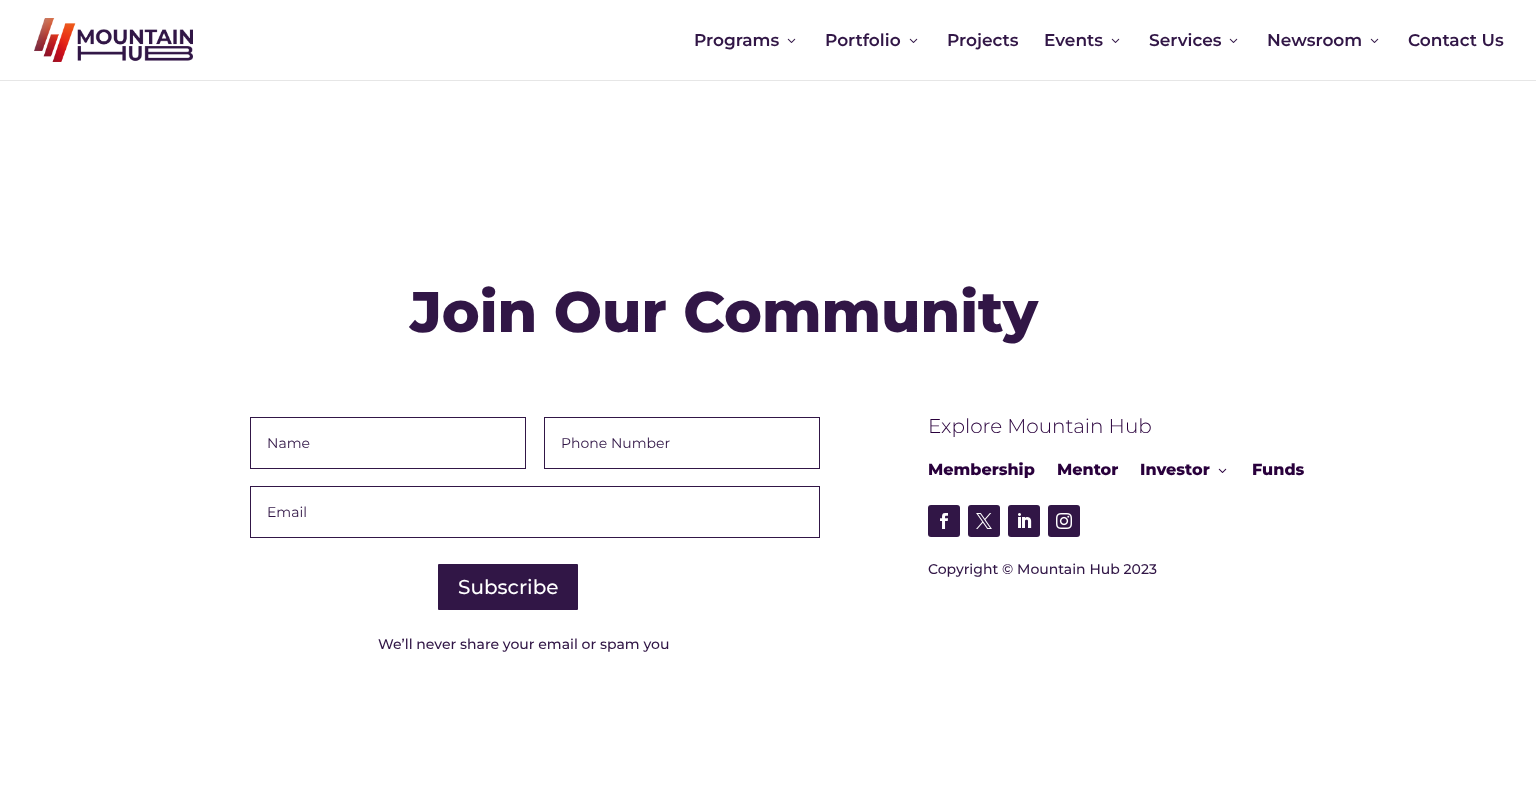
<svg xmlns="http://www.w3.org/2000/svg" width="1536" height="797">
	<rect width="100%" height="100%" fill="#FFFFFF" />
	<rect x="0" y="80" width="1536" height="1" fill="#E6E6E6" />
	<image x="34" y="18" width="159" height="44" href="assets/img1.png" />
	<text x="694" y="46" font-family="'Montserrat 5'" font-size="17" font-weight="100" fill="#311646">Programs</text>
	<image x="787" y="38" width="9" height="5" href="assets/img2.png" />
	<text x="825" y="46" font-family="'Montserrat 5'" font-size="17" font-weight="100" fill="#311646">Portfolio</text>
	<image x="909" y="38" width="9" height="5" href="assets/img2.png" />
	<g font-family="'Montserrat 5'" font-size="17" font-weight="100" fill="#311646">
		<text x="947" y="46">Projects</text>
		<text x="1044" y="46">Events</text>
	</g>
	<image x="1111" y="38" width="9" height="5" href="assets/img2.png" />
	<text x="1149" y="46" font-family="'Montserrat 5'" font-size="17" font-weight="100" fill="#311646">Services</text>
	<image x="1229" y="38" width="9" height="5" href="assets/img2.png" />
	<text x="1267" y="46" font-family="'Montserrat 5'" font-size="17" font-weight="100" fill="#311646">Newsroom</text>
	<image x="1370" y="38" width="9" height="5" href="assets/img2.png" />
	<text x="1408" y="46" font-family="'Montserrat 5'" font-size="17" font-weight="100" fill="#311646">Contact Us</text>
	<text x="410" y="332" font-family="Montserrat" font-size="57" font-weight="100" fill="#311646">Join Our Community</text>
	<rect x="250.5" y="417.5" width="275" height="51" fill="none" stroke="#311646" />
	<text x="267" y="448" font-family="'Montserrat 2'" font-size="14" font-weight="100" fill="#311646">Name</text>
	<rect x="544.5" y="417.5" width="275" height="51" fill="none" stroke="#311646" />
	<text x="561" y="448" font-family="'Montserrat 2'" font-size="14" font-weight="100" fill="#311646">Phone Number</text>
	<rect x="250.5" y="486.5" width="569" height="51" fill="none" stroke="#311646" />
	<text x="267" y="517" font-family="'Montserrat 2'" font-size="14" font-weight="100" fill="#311646">Email</text>
	<rect x="437" y="563" width="142" height="48" rx="2" fill="#311646" stroke="#FFFFFF" stroke-width="2" />
	<text x="458" y="594" font-family="'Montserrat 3'" font-size="20" font-weight="100" fill="#FFFFFF">Subscribe</text>
	<text x="378" y="649" font-family="'Montserrat 3'" font-size="14" font-weight="100" fill="#311646">We’ll never share your email or spam you</text>
	<text x="928" y="433" font-family="'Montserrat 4'" font-size="20" font-weight="100" fill="#29003C">Explore Mountain Hub</text>
	<g font-family="Montserrat" font-size="16" font-weight="100" fill="#29003C">
		<text x="928" y="475">Membership</text>
		<text x="1057" y="475">Mentor</text>
		<text x="1140" y="475">Investor</text>
	</g>
	<image x="1218" y="468" width="9" height="5" href="assets/img3.png" />
	<text x="1252" y="475" font-family="Montserrat" font-size="16" font-weight="100" fill="#29003C">Funds</text>
	<rect x="928" y="505" width="32" height="32" rx="3" fill="#311646" />
	<image x="940" y="513" width="8" height="16" href="assets/img4.png" />
	<rect x="968" y="505" width="32" height="32" rx="3" fill="#311646" />
	<image x="976" y="513" width="16" height="16" href="assets/img5.png" />
	<rect x="1008" y="505" width="32" height="32" rx="3" fill="#311646" />
	<image x="1018" y="513" width="14" height="15" href="assets/img6.png" />
	<rect x="1048" y="505" width="32" height="32" rx="3" fill="#311646" />
	<image x="1056" y="513" width="16" height="16" href="assets/img7.png" />
	<text x="928" y="574" font-family="'Montserrat 3'" font-size="14" font-weight="100" fill="#311646">Copyright © Mountain Hub 2023</text>
</svg>
